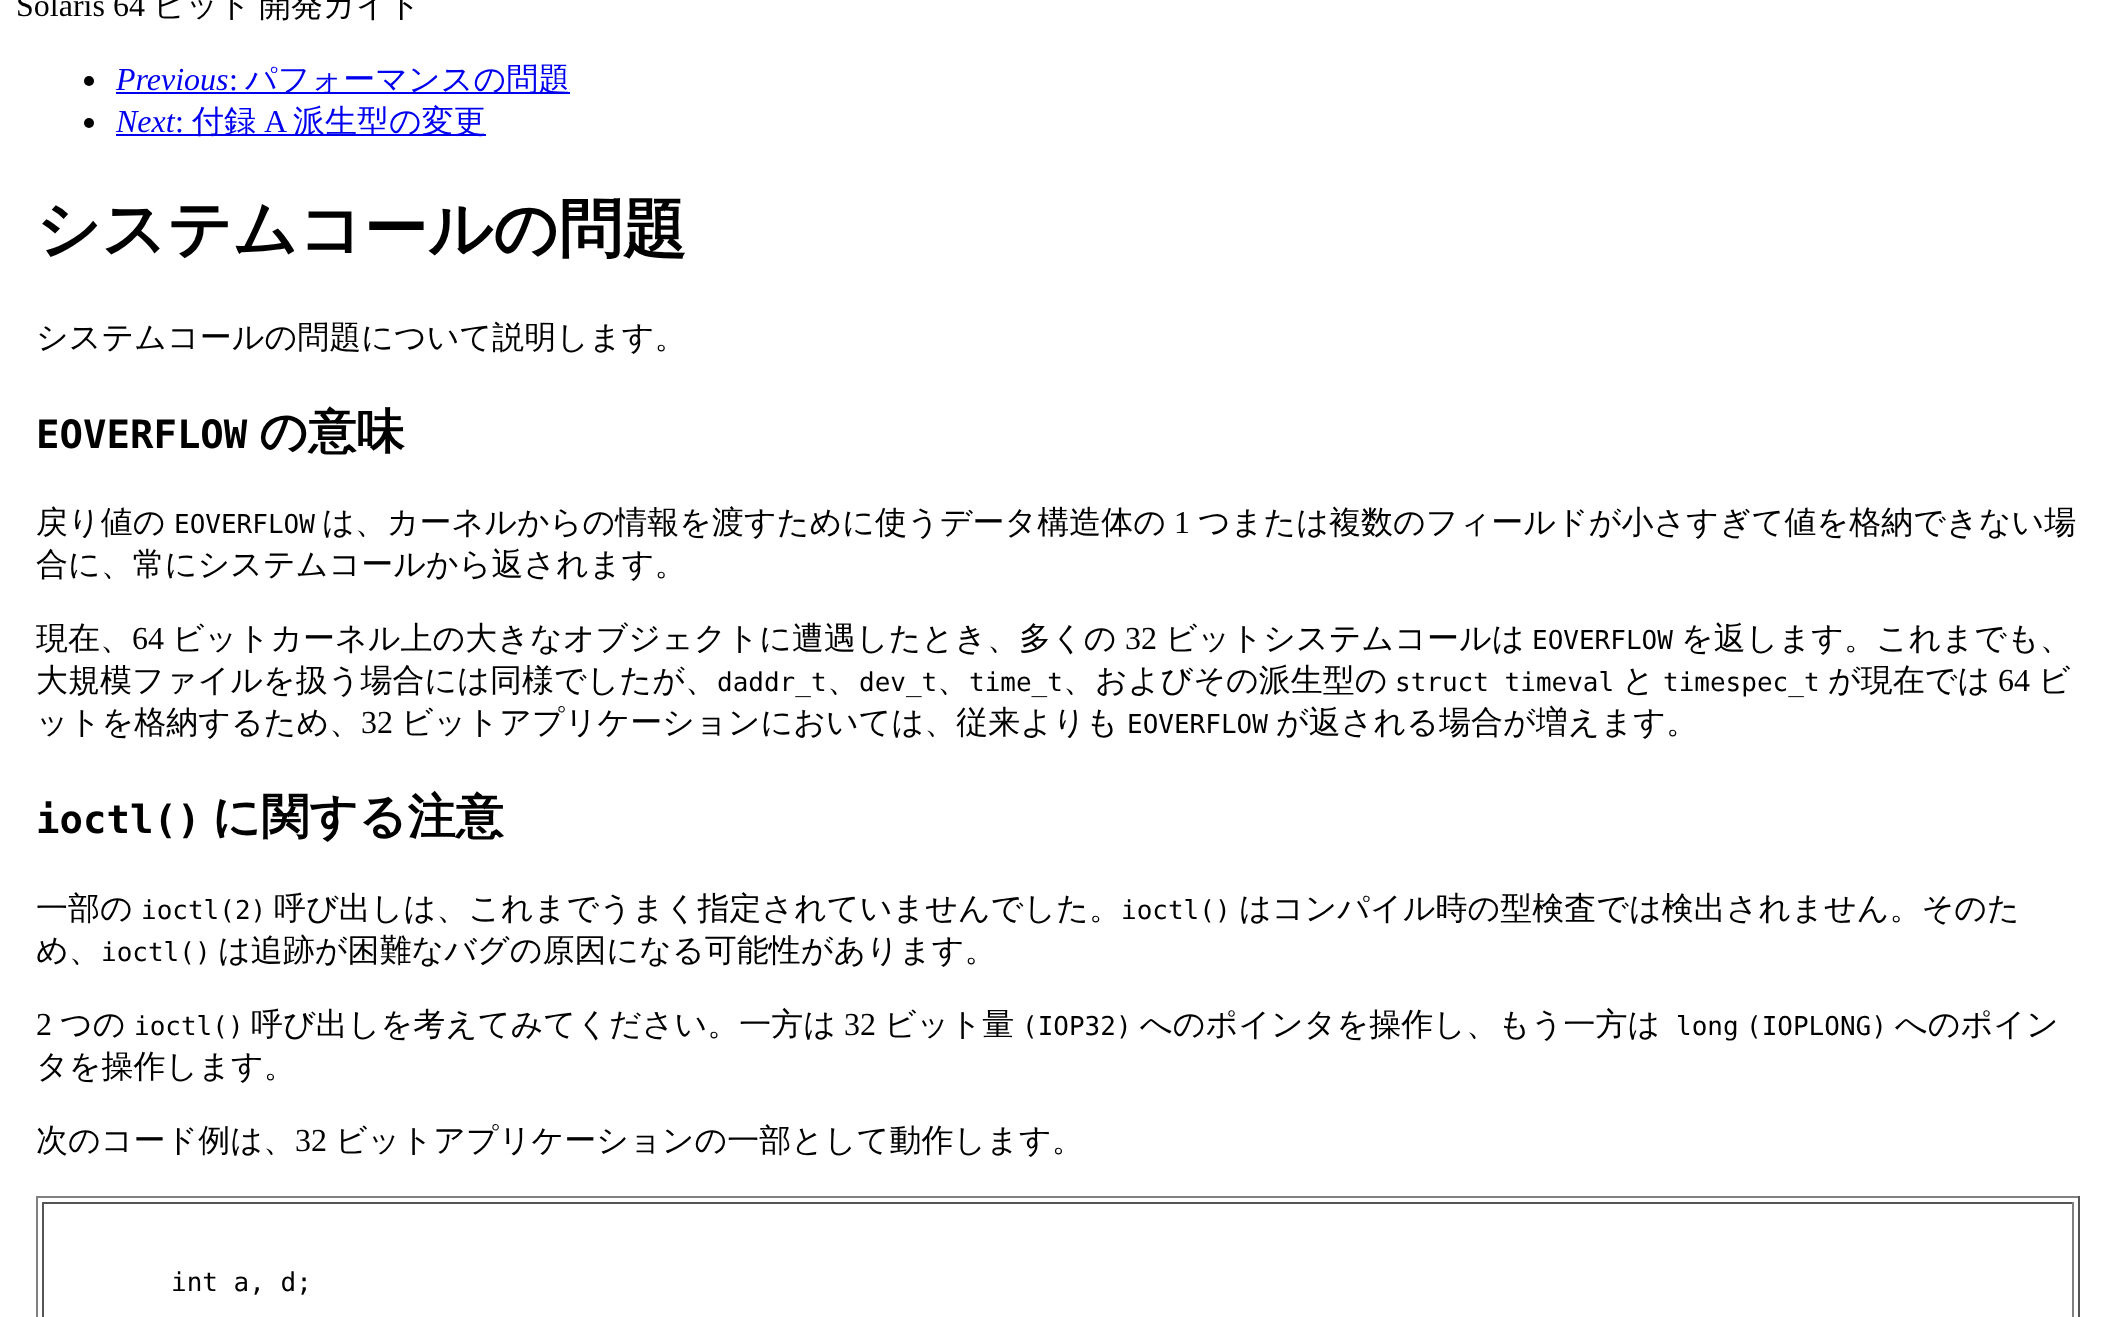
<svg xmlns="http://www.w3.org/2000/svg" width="2115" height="1317">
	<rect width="100%" height="100%" fill="#FFFFFF" />
	<text x="16" y="16" font-family="Liberation Serif" font-size="32" fill="#000000">Solaris 64</text>
	<g font-family="WenQuanYi Zen Hei" font-size="32" font-weight="500" fill="#000000">
		<text x="153" y="16">ビット</text>
		<text x="259" y="16">開発ガイド</text>
	</g>
	<circle cx="89" cy="81" r="5" fill="#000000" />
	<text x="116" y="90" font-family="Liberation Serif" font-size="32" font-style="italic" fill="#0000EE">Previous</text>
	<text x="229" y="90" font-family="Liberation Serif" font-size="32" fill="#0000EE">:</text>
	<rect x="116" y="92" width="454" height="2" fill="#0000EE" />
	<text x="245" y="90" font-family="WenQuanYi Zen Hei" font-size="32" font-weight="500" fill="#0000EE">パフォーマンスの問題</text>
	<circle cx="89" cy="123" r="5" fill="#000000" />
	<text x="116" y="132" font-family="Liberation Serif" font-size="32" font-style="italic" fill="#0000EE">Next</text>
	<text x="175" y="132" font-family="Liberation Serif" font-size="32" fill="#0000EE">:</text>
	<rect x="116" y="134" width="370" height="2" fill="#0000EE" />
	<text x="192" y="132" font-family="WenQuanYi Zen Hei" font-size="32" font-weight="500" fill="#0000EE">付録</text>
	<text x="264" y="132" font-family="Liberation Serif" font-size="32" fill="#0000EE">A</text>
	<text x="293" y="132" font-family="WenQuanYi Zen Hei" font-size="32" font-weight="500" fill="#0000EE">派生型の変更</text>
	<text x="36" y="251" font-family="WenQuanYi Zen Hei" font-size="64" font-weight="700" fill="#000000">システムコールの問題</text>
	<text x="36" y="348" font-family="WenQuanYi Zen Hei" font-size="32" font-weight="500" fill="#000000">システムコールの問題について説明します。</text>
	<text x="36" y="448" font-family="DejaVu Sans Mono" font-size="39" font-weight="700" fill="#000000">EOVERFLOW</text>
	<text x="259" y="448" font-family="WenQuanYi Zen Hei" font-size="48" font-weight="700" fill="#000000">の意味</text>
	<text x="36" y="533" font-family="WenQuanYi Zen Hei" font-size="32" font-weight="500" fill="#000000">戻り値の</text>
	<text x="174" y="533" font-family="DejaVu Sans Mono" font-size="26" fill="#000000">EOVERFLOW</text>
	<text x="322" y="533" font-family="WenQuanYi Zen Hei" font-size="32" font-weight="500" fill="#000000">は、カーネルからの情報を渡すために使うデータ構造体の</text>
	<text x="1174" y="533" font-family="Liberation Serif" font-size="32" fill="#000000">1</text>
	<g font-family="WenQuanYi Zen Hei" font-size="32" font-weight="500" fill="#000000">
		<text x="1198" y="533">つまたは複数のフィールドが小さすぎて値を格納できない場</text>
		<text x="36" y="575">合に、常にシステムコールから返されます。</text>
		<text x="36" y="649">現在、</text>
	</g>
	<text x="132" y="649" font-family="Liberation Serif" font-size="32" fill="#000000">64</text>
	<text x="172" y="649" font-family="WenQuanYi Zen Hei" font-size="32" font-weight="500" fill="#000000">ビットカーネル上の大きなオブジェクトに遭遇したとき、多くの</text>
	<text x="1125" y="649" font-family="Liberation Serif" font-size="32" fill="#000000">32</text>
	<text x="1165" y="649" font-family="WenQuanYi Zen Hei" font-size="32" font-weight="500" fill="#000000">ビットシステムコールは</text>
	<text x="1532" y="649" font-family="DejaVu Sans Mono" font-size="26" fill="#000000">EOVERFLOW</text>
	<g font-family="WenQuanYi Zen Hei" font-size="32" font-weight="500" fill="#000000">
		<text x="1681" y="649">を返します。これまでも、</text>
		<text x="36" y="691">大規模ファイルを扱う場合には同様でしたが、</text>
	</g>
	<text x="717" y="691" font-family="DejaVu Sans Mono" font-size="26" fill="#000000">daddr_t</text>
	<text x="827" y="691" font-family="WenQuanYi Zen Hei" font-size="32" font-weight="500" fill="#000000">、</text>
	<text x="859" y="691" font-family="DejaVu Sans Mono" font-size="26" fill="#000000">dev_t</text>
	<text x="937" y="691" font-family="WenQuanYi Zen Hei" font-size="32" font-weight="500" fill="#000000">、</text>
	<text x="969" y="691" font-family="DejaVu Sans Mono" font-size="26" fill="#000000">time_t</text>
	<text x="1063" y="691" font-family="WenQuanYi Zen Hei" font-size="32" font-weight="500" fill="#000000">、およびその派生型の</text>
	<text x="1395" y="691" font-family="DejaVu Sans Mono" font-size="26" fill="#000000">struct timeval</text>
	<text x="1622" y="691" font-family="WenQuanYi Zen Hei" font-size="32" font-weight="500" fill="#000000">と</text>
	<text x="1663" y="691" font-family="DejaVu Sans Mono" font-size="26" fill="#000000">timespec_t</text>
	<text x="1828" y="691" font-family="WenQuanYi Zen Hei" font-size="32" font-weight="500" fill="#000000">が現在では</text>
	<text x="1998" y="691" font-family="Liberation Serif" font-size="32" fill="#000000">64</text>
	<g font-family="WenQuanYi Zen Hei" font-size="32" font-weight="500" fill="#000000">
		<text x="2038" y="691">ビ</text>
		<text x="36" y="733">ットを格納するため、</text>
	</g>
	<text x="361" y="733" font-family="Liberation Serif" font-size="32" fill="#000000">32</text>
	<text x="401" y="733" font-family="WenQuanYi Zen Hei" font-size="32" font-weight="500" fill="#000000">ビットアプリケーションにおいては、従来よりも</text>
	<text x="1127" y="733" font-family="DejaVu Sans Mono" font-size="26" fill="#000000">EOVERFLOW</text>
	<text x="1276" y="733" font-family="WenQuanYi Zen Hei" font-size="32" font-weight="500" fill="#000000">が返される場合が増えます。</text>
	<text x="36" y="833" font-family="DejaVu Sans Mono" font-size="39" font-weight="700" fill="#000000">ioctl()</text>
	<text x="212" y="833" font-family="WenQuanYi Zen Hei" font-size="48" font-weight="700" fill="#000000">に関する注意</text>
	<text x="36" y="919" font-family="WenQuanYi Zen Hei" font-size="32" font-weight="500" fill="#000000">一部の</text>
	<text x="141" y="919" font-family="DejaVu Sans Mono" font-size="26" fill="#000000">ioctl(2)</text>
	<text x="274" y="919" font-family="WenQuanYi Zen Hei" font-size="32" font-weight="500" fill="#000000">呼び出しは、これまでうまく指定されていませんでした。</text>
	<text x="1121" y="919" font-family="DejaVu Sans Mono" font-size="26" fill="#000000">ioctl()</text>
	<g font-family="WenQuanYi Zen Hei" font-size="32" font-weight="500" fill="#000000">
		<text x="1239" y="919">はコンパイル時の型検査では検出されません。そのた</text>
		<text x="36" y="961">め、</text>
	</g>
	<text x="101" y="961" font-family="DejaVu Sans Mono" font-size="26" fill="#000000">ioctl()</text>
	<text x="218" y="961" font-family="WenQuanYi Zen Hei" font-size="32" font-weight="500" fill="#000000">は追跡が困難なバグの原因になる可能性があります。</text>
	<text x="36" y="1035" font-family="Liberation Serif" font-size="32" fill="#000000">2</text>
	<text x="60" y="1035" font-family="WenQuanYi Zen Hei" font-size="32" font-weight="500" fill="#000000">つの</text>
	<text x="134" y="1035" font-family="DejaVu Sans Mono" font-size="26" fill="#000000">ioctl()</text>
	<text x="251" y="1035" font-family="WenQuanYi Zen Hei" font-size="32" font-weight="500" fill="#000000">呼び出しを考えてみてください。一方は</text>
	<text x="844" y="1035" font-family="Liberation Serif" font-size="32" fill="#000000">32</text>
	<text x="884" y="1035" font-family="WenQuanYi Zen Hei" font-size="32" font-weight="500" fill="#000000">ビット量</text>
	<text x="1022" y="1035" font-family="DejaVu Sans Mono" font-size="26" fill="#000000">(IOP32)</text>
	<text x="1140" y="1035" font-family="WenQuanYi Zen Hei" font-size="32" font-weight="500" fill="#000000">へのポインタを操作し、もう一方は</text>
	<g font-family="DejaVu Sans Mono" font-size="26" fill="#000000">
		<text x="1676" y="1035">long</text>
		<text x="1746" y="1035">(IOPLONG)</text>
	</g>
	<g font-family="WenQuanYi Zen Hei" font-size="32" font-weight="500" fill="#000000">
		<text x="1895" y="1035">へのポイン</text>
		<text x="36" y="1077">タを操作します。</text>
		<text x="36" y="1151">次のコード例は、</text>
	</g>
	<text x="295" y="1151" font-family="Liberation Serif" font-size="32" fill="#000000">32</text>
	<text x="335" y="1151" font-family="WenQuanYi Zen Hei" font-size="32" font-weight="500" fill="#000000">ビットアプリケーションの一部として動作します。</text>
	<rect x="36" y="1196" width="2044" height="2" fill="#808080" />
	<rect x="2078" y="1196" width="2" height="121" fill="#555555" />
	<rect x="36" y="1196" width="2" height="121" fill="#808080" />
	<rect x="42" y="1202" width="2032" height="2" fill="#555555" />
	<rect x="2072" y="1202" width="2" height="115" fill="#808080" />
	<rect x="42" y="1202" width="2" height="115" fill="#555555" />
	<text x="171" y="1291" font-family="DejaVu Sans Mono" font-size="26" fill="#000000">int a, d;</text>
</svg>
